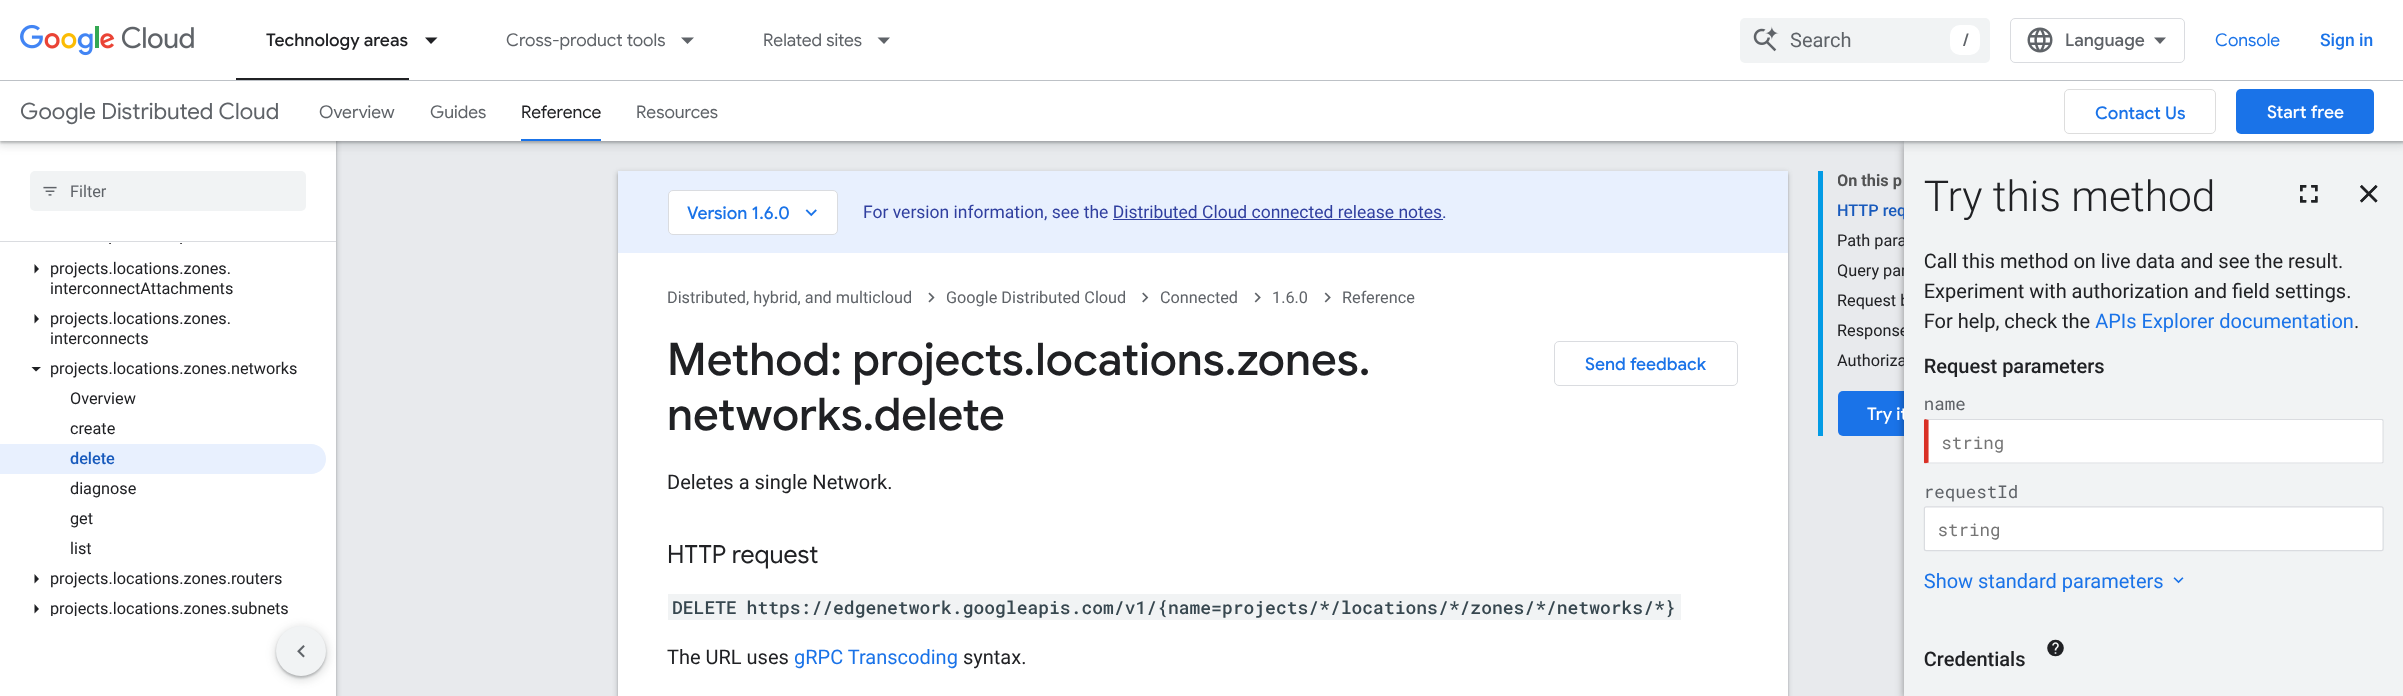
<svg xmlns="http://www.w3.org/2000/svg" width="2403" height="696">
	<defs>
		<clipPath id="clip1"><rect x="1838" y="171" width="128" height="265" /></clipPath>
		<clipPath id="clip2"><rect x="1838" y="171" width="91" height="265" /></clipPath>
	</defs>
	<rect width="100%" height="100%" fill="#E8EAED" />
	<rect x="-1" y="0" width="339" height="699" fill="#3C4043" fill-opacity="0.15" filter="blur(2px)" />
	<rect x="0" y="1" width="336" height="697" fill="#3C4043" fill-opacity="0.3" filter="blur(1px)" />
	<rect x="0" y="243" width="336" height="373" fill="#FFFFFF" />
	<g font-family="Roboto" font-size="16.25" fill="#202124">
		<text x="108" y="244">.</text>
		<text x="179" y="244">.</text>
	</g>
	<rect x="0" y="141" width="336" height="102" fill="#FFFFFF" />
	<rect x="1838" y="391" width="103" height="45" rx="5" fill="#1A73E8" />
	<rect x="1904" y="146" width="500" height="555" fill="#000000" fill-opacity="0.28" filter="blur(5px)" />
	<rect x="1904" y="141" width="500" height="555" fill="#000000" fill-opacity="0.14" filter="blur(2.5px)" />
	<text x="1837" y="216" font-family="Roboto" font-size="16.25" font-weight="500" fill="#185ABC">HTTP req</text>
	<text x="1837" y="246" font-family="Roboto" font-size="16.25" fill="#202124">Path para</text>
	<g clip-path="url(#clip1)">
		<text x="1837" y="276" font-family="Roboto" font-size="16.25" fill="#202124">Query par</text>
	</g>
	<g font-family="Roboto" font-size="16.25" fill="#202124">
		<text x="1837" y="306">Request b</text>
		<text x="1837" y="336">Response</text>
		<text x="1837" y="366">Authoriza</text>
	</g>
	<text x="1867" y="420" font-family="Google Sans" font-size="17.5" font-weight="500" fill="#FFFFFF">Try it</text>
	<rect x="1904" y="141" width="499" height="555" fill="#F1F3F4" />
	<rect x="-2" y="81" width="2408" height="65" fill="#3C4043" fill-opacity="0.15" filter="blur(4px)" />
	<rect x="0" y="83" width="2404" height="60" fill="#3C4043" fill-opacity="0.3" filter="blur(1px)" />
	<rect x="0" y="0" width="2403" height="80" fill="#FFFFFF" />
	<rect x="0" y="80" width="2403" height="1" fill="#BDC1C6" />
	<image x="20" y="24" width="174" height="32" href="assets/img1.png" />
	<text x="266" y="46" font-family="Google Sans" font-size="17.5" font-weight="500" fill="#202124">Technology areas</text>
	<rect x="236" y="78" width="173" height="2" fill="#202124" />
	<path d="M425 37.5H437.5L431 44Z" fill="#202124" />
	<text x="506" y="46" font-family="Google Sans" font-size="17.5" fill="#5F6368">Cross-product tools</text>
	<path d="M681 37.5H694L687.5 44Z" fill="#5F6368" />
	<text x="763" y="46" font-family="Google Sans" font-size="17.5" fill="#5F6368">Related sites</text>
	<path d="M877.5 37.5H890L884 44Z" fill="#5F6368" />
	<rect x="1740" y="18" width="250" height="45" rx="5" fill="#F1F3F4" />
	<image x="1753" y="26" width="26" height="26" href="assets/img2.png" />
	<text x="1790" y="47" font-family="Roboto" font-size="20" fill="#5F6368">Search</text>
	<rect x="1950" y="25" width="30" height="30" rx="10" fill="#FFFFFF" />
	<text x="1963" y="46" font-family="Google Sans" font-size="17.5" font-weight="500" fill="#5F6368">/</text>
	<rect x="2010.5" y="18.5" width="174" height="44" rx="4.5" fill="none" stroke="#DADCE0" />
	<image x="2027" y="27" width="26" height="26" href="assets/img3.png" />
	<text x="2065" y="46" font-family="Google Sans" font-size="17.5" font-weight="500" fill="#5F6368">Language</text>
	<path d="M2160 44L2154 37.5H2166Z" fill="#5F6368" />
	<text x="2215" y="46" font-family="Google Sans" font-size="17.5" fill="#1A73E8">Console</text>
	<text x="2320" y="46" font-family="Roboto" font-size="17.5" font-weight="500" fill="#1A73E8">Sign in</text>
	<rect x="0" y="81" width="2403" height="60" fill="#FFFFFF" />
	<text x="20" y="119" font-family="Google Sans" font-size="22.5" fill="#5F6368">Google Distributed Cloud</text>
	<g font-family="Google Sans" font-size="17.5" fill="#5F6368">
		<text x="319" y="118">Overview</text>
		<text x="430" y="118">Guides</text>
	</g>
	<text x="521" y="118" font-family="Google Sans" font-size="17.5" fill="#202124">Reference</text>
	<rect x="521" y="139" width="80" height="2" fill="#1A73E8" />
	<text x="636" y="118" font-family="Google Sans" font-size="17.5" fill="#5F6368">Resources</text>
	<rect x="2064.5" y="89.5" width="151" height="44" rx="4.5" fill="none" stroke="#DDDDDD" />
	<text x="2095" y="119" font-family="Google Sans" font-size="17.5" font-weight="500" fill="#1A73E8">Contact Us</text>
	<rect x="2236" y="89" width="138" height="45" rx="5" fill="#1A73E8" />
	<text x="2267" y="118" font-family="Google Sans" font-size="17.5" font-weight="500" fill="#FFFFFF">Start free</text>
	<rect x="0" y="241" width="336" height="1" fill="#DADCE0" />
	<rect x="30" y="171" width="276" height="40" rx="5" fill="#F1F3F4" />
	<image x="43" y="186" width="14" height="10" href="assets/img4.png" />
	<text x="70" y="197" font-family="Roboto" font-size="16.25" fill="#5F6368">Filter</text>
	<path d="M34.5 273.5V264L39 269Z" fill="#202124" />
	<g font-family="Roboto" font-size="16.25" fill="#202124">
		<text x="50" y="274">projects.locations.zones.</text>
		<text x="50" y="294">interconnectAttachments</text>
	</g>
	<path d="M34.5 323.5V314L39 319Z" fill="#202124" />
	<g font-family="Roboto" font-size="16.25" fill="#202124">
		<text x="50" y="324">projects.locations.zones.</text>
		<text x="50" y="344">interconnects</text>
	</g>
	<path d="M31.5 367H41L36 371.5Z" fill="#202124" />
	<g font-family="Roboto" font-size="16.25" fill="#202124">
		<text x="50" y="374">projects.locations.zones.networks</text>
		<text x="70" y="404">Overview</text>
		<text x="70" y="434">create</text>
	</g>
	<path d="M0 444H311C319.5 444 326 450.5 326 459C326 467.5 319.5 474 311 474H0Z" fill="#E8F0FE" />
	<text x="70" y="464" font-family="Roboto" font-size="16.25" font-weight="500" fill="#185ABC">delete</text>
	<g font-family="Roboto" font-size="16.25" fill="#202124">
		<text x="70" y="494">diagnose</text>
		<text x="70" y="524">get</text>
		<text x="70" y="554">list</text>
	</g>
	<path d="M34.5 583.5V574L39 579Z" fill="#202124" />
	<text x="50" y="584" font-family="Roboto" font-size="16.25" fill="#202124">projects.locations.zones.routers</text>
	<path d="M34.5 613.5V604L39 609Z" fill="#202124" />
	<text x="50" y="614" font-family="Roboto" font-size="16.25" fill="#202124">projects.locations.zones.subnets</text>
	<rect x="616" y="171" width="1173" height="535" rx="4" fill="#3C4043" fill-opacity="0.15" filter="blur(2px)" />
	<rect x="618" y="173" width="1170" height="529" rx="2.5" fill="#3C4043" fill-opacity="0.3" filter="blur(1px)" />
	<rect x="618" y="253" width="1170" height="443" fill="#FFFFFF" />
	<rect x="618" y="171" width="1170" height="82" fill="#E8F0FE" />
	<rect x="668.5" y="190.5" width="169" height="44" rx="4.5" fill="#FFFFFF" stroke="#DADCE0" />
	<text x="687" y="219" font-family="Google Sans" font-size="17.5" font-weight="500" fill="#1A73E8">Version 1.6.0</text>
	<image x="805" y="209" width="12" height="8" href="assets/img5.png" />
	<text x="863" y="218" font-family="Roboto" font-size="17.5" fill="#303F9F">For version information, see the Distributed Cloud connected release notes.</text>
	<rect x="1113" y="219" width="330" height="1" fill="#303F9F" />
	<text x="667" y="303" font-family="Roboto" font-size="16.25" fill="#5F6368">Distributed, hybrid, and multicloud</text>
	<image x="928" y="292" width="7" height="11" href="assets/img6.png" />
	<text x="946" y="303" font-family="Roboto" font-size="16.25" fill="#5F6368">Google Distributed Cloud</text>
	<image x="1142" y="292" width="7" height="11" href="assets/img7.png" />
	<text x="1160" y="303" font-family="Roboto" font-size="16.25" fill="#5F6368">Connected</text>
	<image x="1254" y="292" width="7" height="11" href="assets/img8.png" />
	<text x="1272" y="303" font-family="Roboto" font-size="16.25" fill="#5F6368">1.6.0</text>
	<image x="1324" y="292" width="7" height="11" href="assets/img8.png" />
	<text x="1342" y="303" font-family="Roboto" font-size="16.25" fill="#5F6368">Reference</text>
	<text x="667" y="375" font-family="Google Sans" font-size="45" font-weight="500" fill="#202124">Method: projects.locations.zones.</text>
	<rect x="1554.5" y="341.5" width="183" height="44" rx="4.5" fill="none" stroke="#DADCE0" />
	<text x="1585" y="370" font-family="Google Sans" font-size="17.5" font-weight="500" fill="#1A73E8">Send feedback</text>
	<text x="667" y="430" font-family="Google Sans" font-size="45" font-weight="500" fill="#202124">networks.delete</text>
	<text x="667" y="489" font-family="Roboto" font-size="20" fill="#202124">Deletes a single Network.</text>
	<image x="1923" y="179" width="461" height="488" href="assets/img9.png" />
	<image x="2300" y="185" width="18" height="18" href="assets/img10.png" />
	<image x="2360" y="185" width="18" height="18" href="assets/img11.png" />
	<image x="2300" y="185" width="18" height="18" href="assets/img12.png" />
	<image x="2360" y="185" width="18" height="18" href="assets/img13.png" />
	<text x="667" y="563" font-family="Google Sans" font-size="25" fill="#202124">HTTP request</text>
	<rect x="668" y="594" width="1013" height="26" fill="#F1F3F4" />
	<text x="672" y="614" word-spacing="-1" font-family="Roboto Mono" font-size="18" font-weight="500" fill="#37474F">DELETE https://edgenetwork.googleapis.com/v1/{name=projects/*/locations/*/zones/*/networks/*}</text>
	<text x="667" y="664" font-family="Roboto" font-size="20" fill="#202124">The URL uses</text>
	<text x="794" y="664" font-family="Roboto" font-size="20" fill="#1A73E8">gRPC Transcoding</text>
	<text x="963" y="664" font-family="Roboto" font-size="20" fill="#202124">syntax.</text>
	<rect x="1818" y="171" width="5" height="265" fill="#039BE5" />
	<g clip-path="url(#clip2)">
		<text x="1837" y="186" font-family="Roboto" font-size="16.25" font-weight="700" fill="#515253">On this p</text>
	</g>
	<rect x="0" y="616" width="336" height="80" fill="#FFFFFF" />
	<rect x="274" y="626" width="55" height="55" rx="27.5" fill="#3C4043" fill-opacity="0.15" filter="blur(4px)" />
	<rect x="276" y="628" width="50" height="50" rx="25" fill="#3C4043" fill-opacity="0.3" filter="blur(1px)" />
	<circle cx="301" cy="651" r="25" fill="#F1F3F4" />
	<image x="297" y="645" width="8" height="13" href="assets/img14.png" />
</svg>
